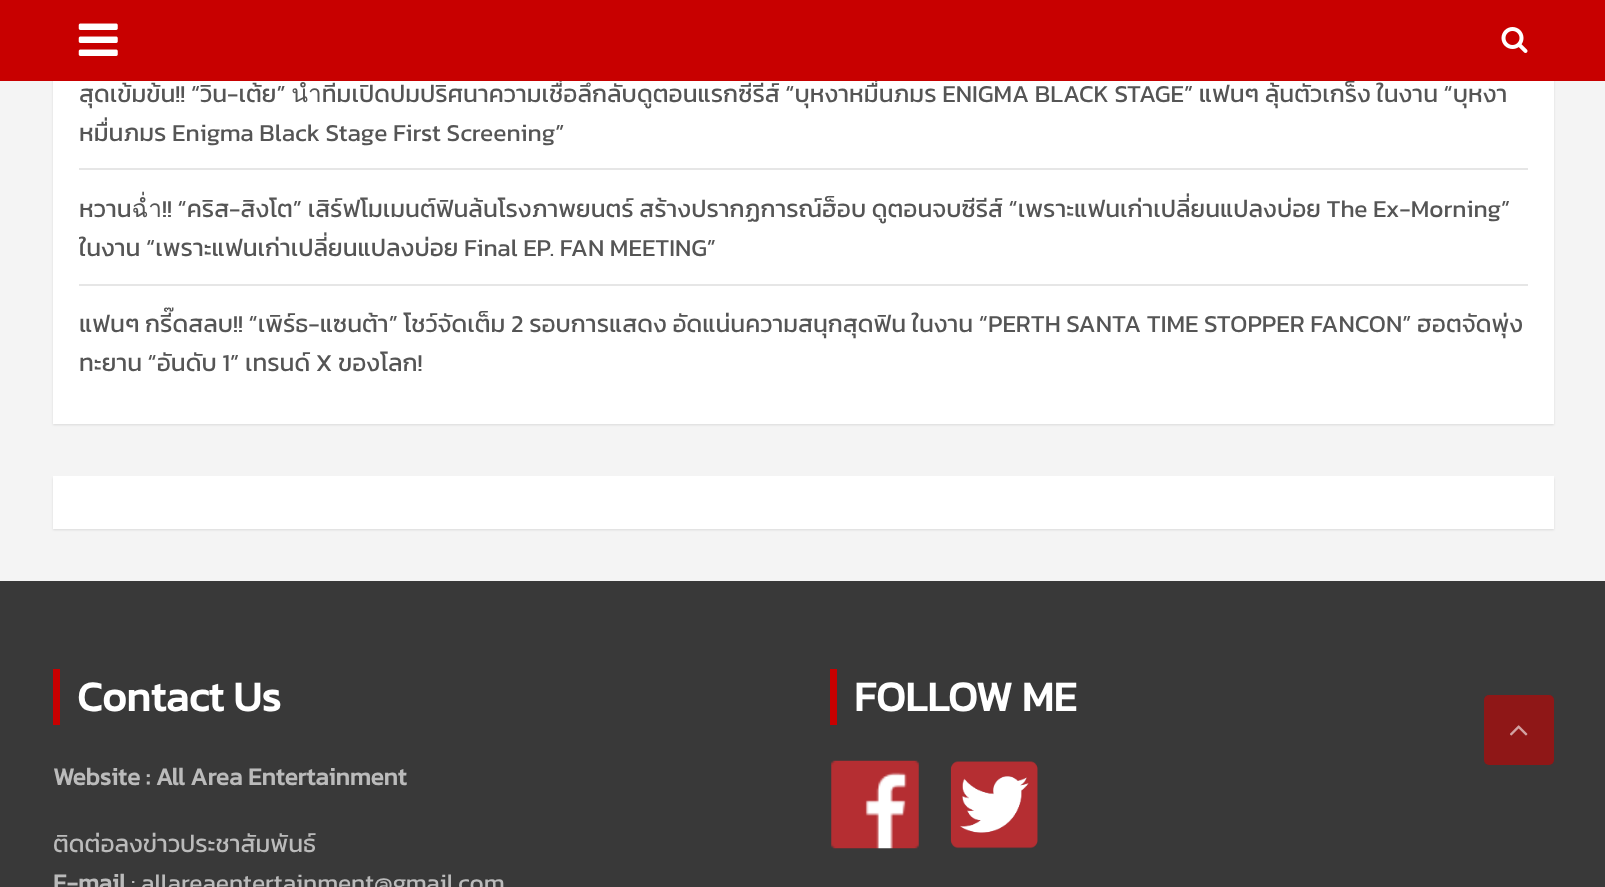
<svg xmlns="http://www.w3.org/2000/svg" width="1605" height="887">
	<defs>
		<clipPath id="clip1"><rect x="79" y="0" width="1449" height="397" /></clipPath>
	</defs>
	<rect width="100%" height="100%" fill="#F4F4F4" />
	<rect x="53" y="-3" width="1501" height="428" fill="#000000" fill-opacity="0.1" filter="blur(1px)" />
	<rect x="53" y="81" width="1501" height="343" fill="#FFFFFF" />
	<g clip-path="url(#clip1)">
		<text x="79" y="102" font-family="Kanit" font-size="24.5" fill="#555555">สุดเข้มข้น!! “วิน-เต้ย” นำทีมเปิดปมปริศนาความเชื่อลึกลับ</text>
	</g>
	<text x="637" y="102" font-family="Kanit" font-size="24.5" fill="#555555">ดูตอนแรกซีรีส์ “บุหงาหมื่นภมร ENIGMA BLACK STAGE” แฟนๆ ลุ้นตัวเกร็ง ในงาน “บุหงา</text>
	<rect x="0" y="0" width="1605" height="81" fill="#C80000" />
	<image x="78" y="23" width="40" height="33" href="assets/img1.png" />
	<image x="1501" y="27" width="27" height="26" href="assets/img2.png" />
	<rect x="79" y="168" width="1449" height="2" fill="#E6E6E6" />
	<text x="79" y="141" font-family="Kanit" font-size="24.5" fill="#555555">หมื่นภมร Enigma Black Stage First Screening”</text>
	<rect x="79" y="284" width="1449" height="2" fill="#E6E6E6" />
	<text x="79" y="217" font-family="Kanit" font-size="24.5" fill="#555555">หวานฉ่ำ!! “คริส-สิงโต” เสิร์ฟโมเมนต์ฟินล้นโรงภาพยนตร์ สร้างปรากฏการณ์ฮ็อบ ดูตอนจบซีรีส์ “เพราะแฟนเก่าเปลี่ยนแปลงบ่อย The Ex-Morning”</text>
	<g clip-path="url(#clip1)">
		<text x="79" y="256" font-family="Kanit" font-size="24.5" fill="#555555">ในงาน “เพราะแฟนเก่าเปลี่ยนแปลงบ่อย Final EP. FAN MEETING”</text>
	</g>
	<g font-family="Kanit" font-size="24.5" fill="#555555">
		<text x="79" y="332">แฟนๆ กรี๊ดสลบ!! “เพิร์ธ-แซนต้า” โชว์จัดเต็ม 2 รอบการแสดง อัดแน่นความสนุกสุดฟิน ในงาน “PERTH SANTA TIME STOPPER FANCON” ฮอตจัดพุ่ง</text>
		<text x="79" y="371">ทะยาน “อันดับ 1” เทรนด์ X ของโลก!</text>
	</g>
	<rect x="53" y="478" width="1501" height="52" fill="#000000" fill-opacity="0.1" filter="blur(1px)" />
	<rect x="53" y="476" width="1501" height="53" fill="#FFFFFF" />
	<rect x="0" y="581" width="1605" height="306" fill="#393939" />
	<rect x="53" y="669" width="7" height="56" fill="#C80000" />
	<text x="77" y="711" font-family="Kanit" font-size="42" font-weight="700" fill="#FFFFFF">Contact Us</text>
	<text x="53" y="785" font-family="Kanit" font-size="24.5" font-weight="700" fill="#BBBBBB">Website : All Area Entertainment</text>
	<text x="53" y="852" font-family="Kanit" font-size="24.5" fill="#BBBBBB">ติดต่อลงข่าวประชาสัมพันธ์</text>
	<text x="53" y="891" font-family="Kanit" font-size="24.5" font-weight="700" fill="#BBBBBB">E-mail</text>
	<text x="131" y="891" font-family="Kanit" font-size="24.5" fill="#BBBBBB">: allareaentertainment@gmail.com</text>
	<rect x="830" y="669" width="7" height="56" fill="#C80000" />
	<text x="854" y="711" font-family="Kanit" font-size="42" font-weight="700" fill="#FFFFFF">FOLLOW ME</text>
	<image x="831" y="760" width="88" height="89" href="assets/img3.png" />
	<image x="950" y="761" width="88" height="88" href="assets/img4.png" />
	<rect x="1484" y="695" width="70" height="70" rx="5" fill="#8F1717" />
	<image x="1510" y="725" width="18" height="11" href="assets/img5.png" />
</svg>
